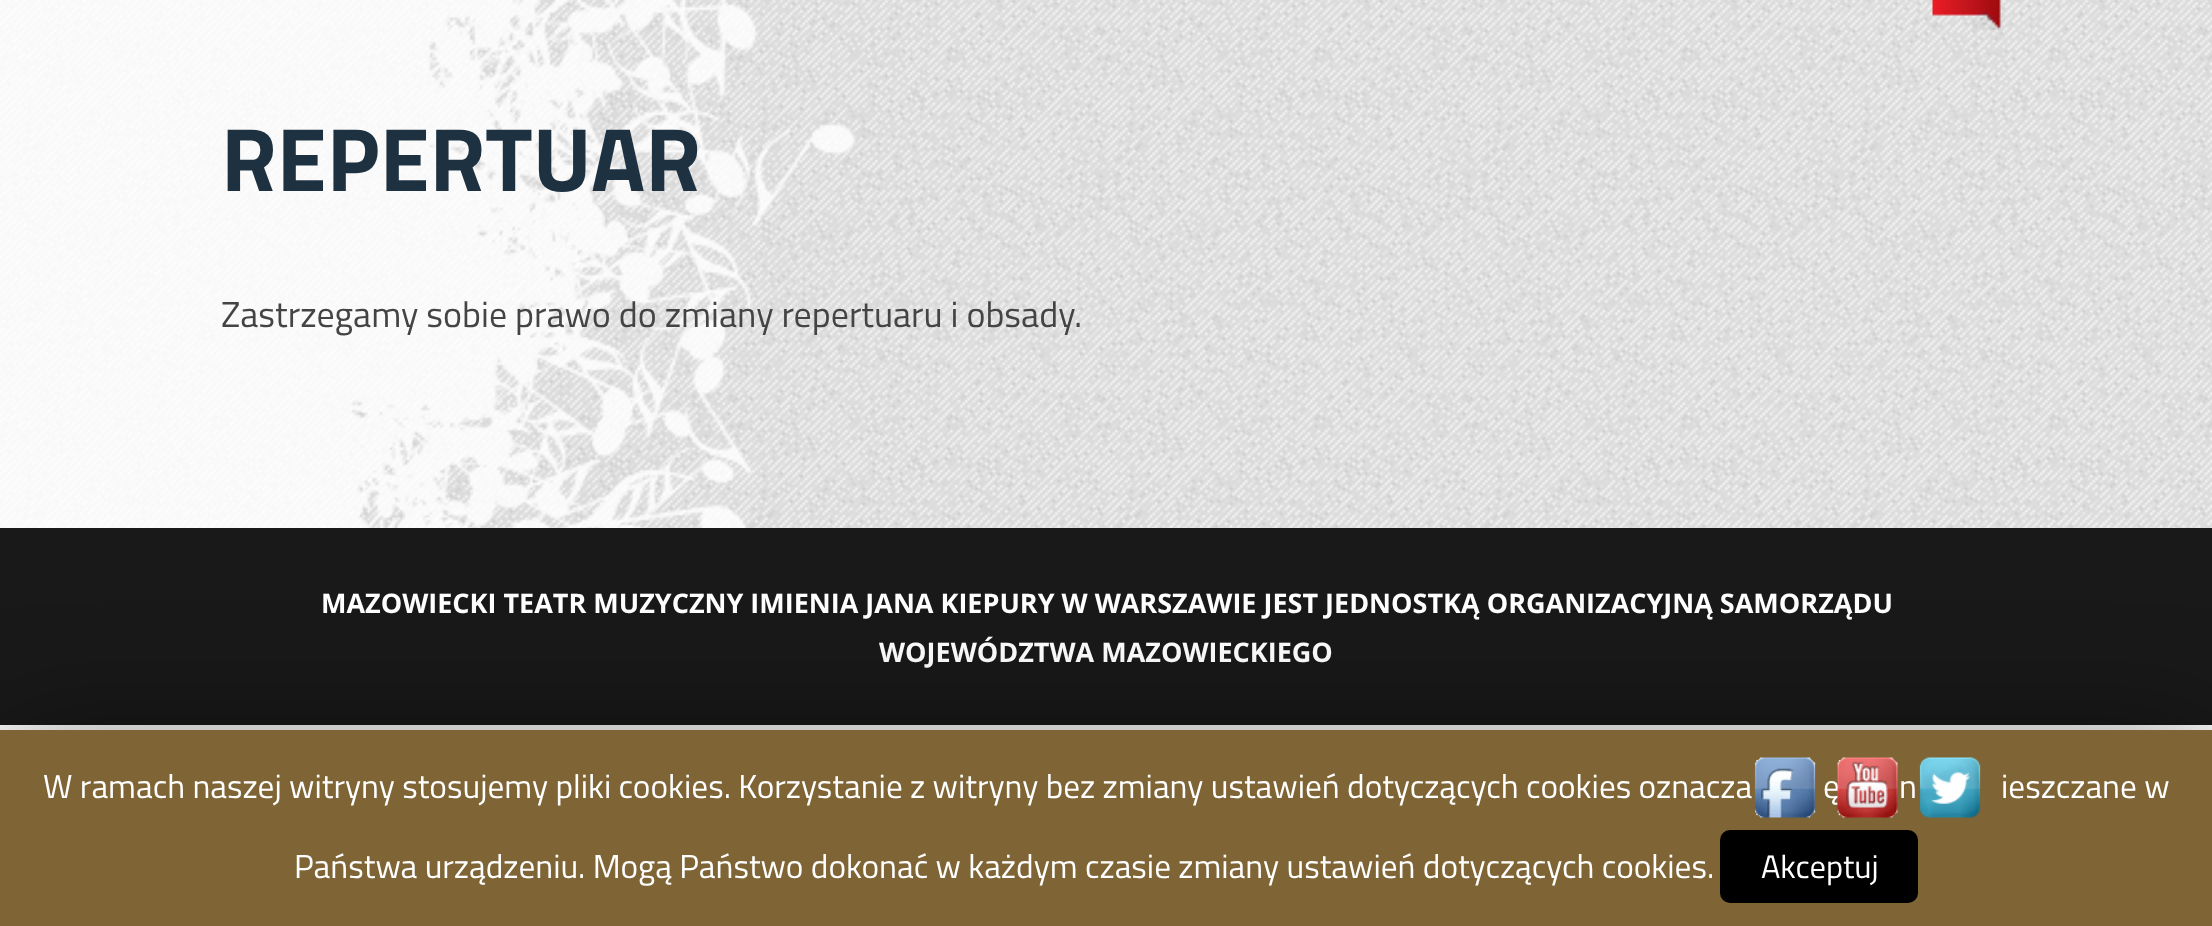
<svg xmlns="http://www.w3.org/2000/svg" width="2212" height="926">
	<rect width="100%" height="100%" fill="#FFFFFF" />
	<image x="0" y="0" width="2212" height="528" href="assets/img1.png" />
	<image x="1932" y="0" width="71" height="30" href="assets/img2.png" />
	<text x="221" y="191" font-family="Titillium Web" font-size="90" font-weight="700" fill="#1E3141">REPERTUAR</text>
	<text x="221" y="327" font-family="Titillium Web" font-size="36" fill="#444444">Zastrzegamy sobie prawo do zmiany repertuaru i obsady.</text>
	<rect x="0" y="528" width="2212" height="197" fill="#191919" />
	<g font-family="Open Sans" font-size="27" font-weight="700" fill="#FFFFFF">
		<text x="321" y="613">MAZOWIECKI TEATR MUZYCZNY IMIENIA JANA KIEPURY W WARSZAWIE JEST JEDNOSTKĄ ORGANIZACYJNĄ SAMORZĄDU</text>
		<text x="879" y="662">WOJEWÓDZTWA MAZOWIECKIEGO</text>
	</g>
	<rect x="0" y="743" width="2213" height="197" fill="#000000" fill-opacity="0.5" filter="blur(62.5px)" />
	<rect x="0" y="730" width="2212" height="196" fill="#7F6535" />
	<image x="1754" y="757" width="62" height="61" href="assets/img3.png" />
	<text x="1823" y="798" font-family="Titillium Web" font-size="33.33" fill="#FFFFFF">ę</text>
	<image x="1837" y="757" width="61" height="61" href="assets/img4.png" />
	<image x="1919" y="757" width="62" height="61" href="assets/img5.png" />
	<g font-family="Titillium Web" font-size="33.33" fill="#FFFFFF">
		<text x="43" y="798">W ramach naszej witryny stosujemy pliki cookies. Korzystanie z witryny bez zmiany ustawień dotyczących cookies oznacza</text>
		<text x="1899" y="798">n</text>
		<text x="2001" y="798">ieszczane w</text>
		<text x="294" y="878">Państwa urządzeniu. Mogą Państwo dokonać w każdym czasie zmiany ustawień dotyczących cookies.</text>
	</g>
	<rect x="1720" y="830" width="198" height="73" rx="10" fill="#000000" />
	<text x="1761" y="878" font-family="Titillium Web" font-size="32.5" fill="#FFFFFF">Akceptuj</text>
</svg>
